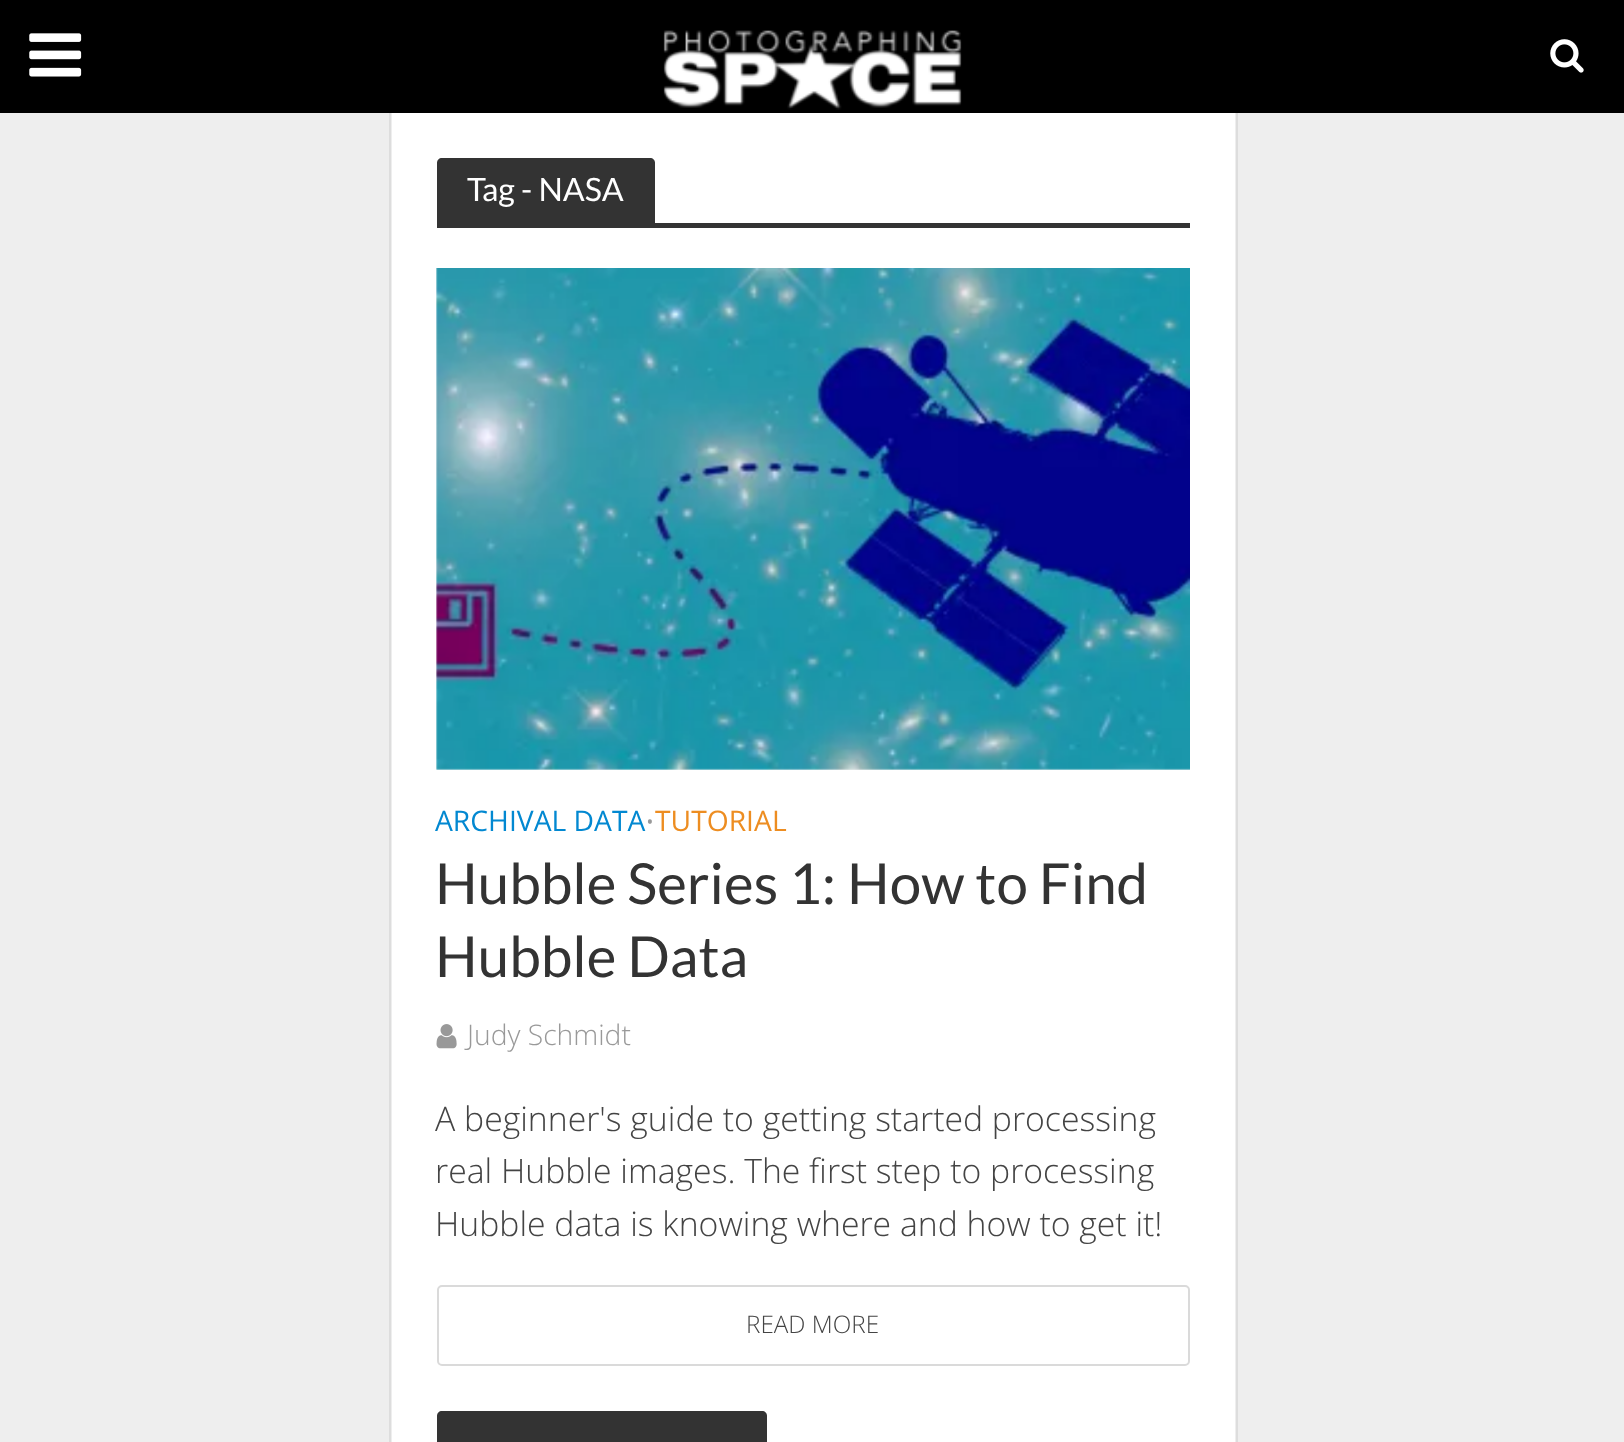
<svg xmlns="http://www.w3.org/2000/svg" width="1624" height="1442">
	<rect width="100%" height="100%" fill="#EEEEEE" />
	<rect x="390" y="111" width="847" height="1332" fill="none" stroke="#DDDDDD" stroke-width="2" />
	<rect x="0" y="0" width="1624" height="113" fill="#000000" />
	<image x="29" y="33" width="53" height="44" href="assets/img1.png" />
	<image x="663" y="30" width="299" height="80" href="assets/img2.png" />
	<image x="1550" y="39" width="34" height="34" href="assets/img3.png" />
	<rect x="392" y="113" width="843" height="1329" fill="#FFFFFF" />
	<path d="M442 158H650C653 158 655 160 655 163V223H437V163C437 160 439 158 442 158Z" fill="#333333" />
	<text x="467" y="201" font-family="Lato" font-size="32.25" fill="#FFFFFF">Tag - NASA</text>
	<rect x="437" y="223" width="753" height="5" fill="#333333" />
	<rect x="437" y="268" width="753" height="502" fill="#F3F3F3" />
	<image x="436" y="268" width="754" height="502" href="assets/img4.png" />
	<text x="435" y="831" font-family="Open Sans" font-size="28.25" fill="#0288D1">ARCHIVAL DATA</text>
	<text x="645" y="831" font-family="Open Sans" font-size="26" font-weight="300" fill="#999999">•</text>
	<text x="655" y="831" font-family="Open Sans" font-size="28.25" fill="#ED8D21">TUTORIAL</text>
	<g font-family="Lato" font-size="56.5" fill="#333333">
		<text x="435" y="904">Hubble Series 1: How to Find</text>
		<text x="435" y="977">Hubble Data</text>
	</g>
	<image x="436" y="1024" width="21" height="25" href="assets/img5.png" />
	<text x="467" y="1045" font-family="Open Sans" font-size="28.25" font-weight="300" fill="#999999">Judy Schmidt</text>
	<g font-family="Open Sans" font-size="33.75" font-weight="300" fill="#444444">
		<text x="435" y="1131">A beginner's guide to getting started processing</text>
		<text x="435" y="1183">real Hubble images. The first step to processing</text>
		<text x="435" y="1236">Hubble data is knowing where and how to get it!</text>
	</g>
	<rect x="438" y="1286" width="751" height="79" rx="4" fill="none" stroke="#DADADA" stroke-width="2" />
	<text x="746" y="1333" font-family="Open Sans" font-size="24.25" font-weight="300" fill="#444444">READ MORE</text>
	<path d="M442 1411H762C765 1411 767 1413 767 1416V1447H437V1416C437 1413 439 1411 442 1411Z" fill="#333333" />
</svg>
